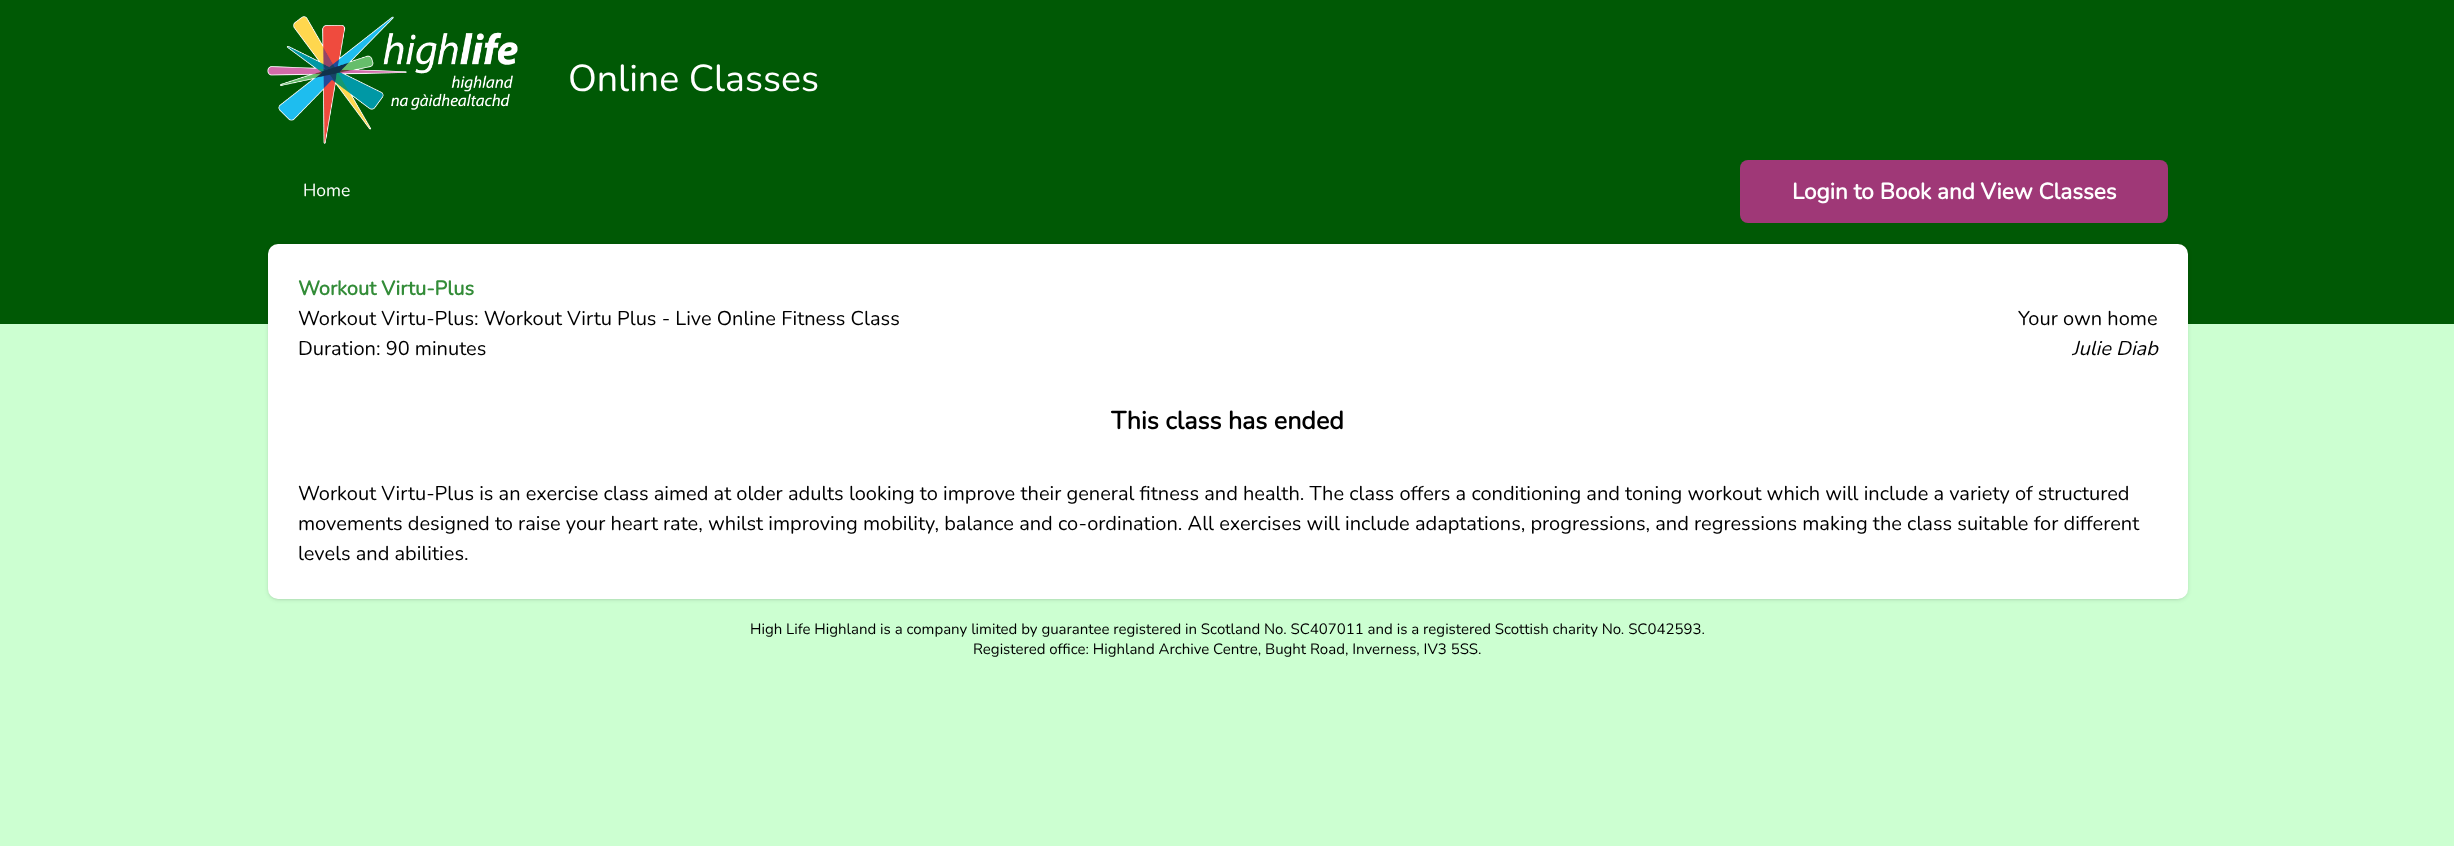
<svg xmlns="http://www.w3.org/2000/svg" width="2454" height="846">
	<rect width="100%" height="100%" fill="#CCFFD1" />
	<rect x="0" y="0" width="2454" height="324" fill="#005905" />
	<image x="267" y="16" width="251" height="128" href="assets/img1.png" />
	<text x="568" y="91" font-family="Nunito" font-size="37.5" font-weight="200" fill="#FFFFFF">Online Classes</text>
	<text x="303" y="196" font-family="Nunito" font-size="17.5" font-weight="200" fill="#FFFFFF">Home</text>
	<rect x="1740" y="160" width="428" height="63" rx="8" fill="#9F3877" />
	<text x="1792" y="199" font-family="Nunito" font-size="22.5" font-weight="700" fill="#FFFFFF">Login to Book and View Classes</text>
	<rect x="269" y="246" width="1917" height="353" rx="9" fill="#000000" fill-opacity="0.1" filter="blur(1px)" />
	<rect x="268" y="245" width="1920" height="355" rx="10" fill="#000000" fill-opacity="0.1" filter="blur(2px)" />
	<rect x="268" y="244" width="1920" height="355" rx="10" fill="#FFFFFF" />
	<text x="298" y="295" font-family="Nunito" font-size="20" font-weight="700" fill="#338C38">Workout Virtu-Plus</text>
	<g font-family="Nunito" font-size="20" font-weight="200" fill="#000000">
		<text x="298" y="325">Workout Virtu-Plus: Workout Virtu Plus - Live Online Fitness Class</text>
		<text x="298" y="355">Duration: 90 minutes</text>
		<text x="2018" y="325">Your own home</text>
	</g>
	<text x="2072" y="355" font-family="Nunito" font-size="20" font-weight="200" font-style="italic" fill="#000000">Julie Diab</text>
	<text x="1111" y="429" font-family="Nunito" font-size="25" font-weight="700" fill="#000000">This class has ended</text>
	<g font-family="Nunito" font-size="20" font-weight="200" fill="#000000">
		<text x="298" y="500">Workout Virtu-Plus is an exercise class aimed at older adults looking to improve their general fitness and health. The class offers a conditioning and toning workout which will include a variety of structured</text>
		<text x="298" y="530">movements designed to raise your heart rate, whilst improving mobility, balance and co-ordination. All exercises will include adaptations, progressions, and regressions making the class suitable for different</text>
		<text x="298" y="560">levels and abilities.</text>
	</g>
	<g font-family="Nunito" font-size="15" font-weight="200" fill="#000000">
		<text x="750" y="634">High Life Highland is a company limited by guarantee registered in Scotland No. SC407011 and is a registered Scottish charity No. SC042593.</text>
		<text x="973" y="654">Registered office: Highland Archive Centre, Bught Road, Inverness, IV3 5SS.</text>
	</g>
</svg>
